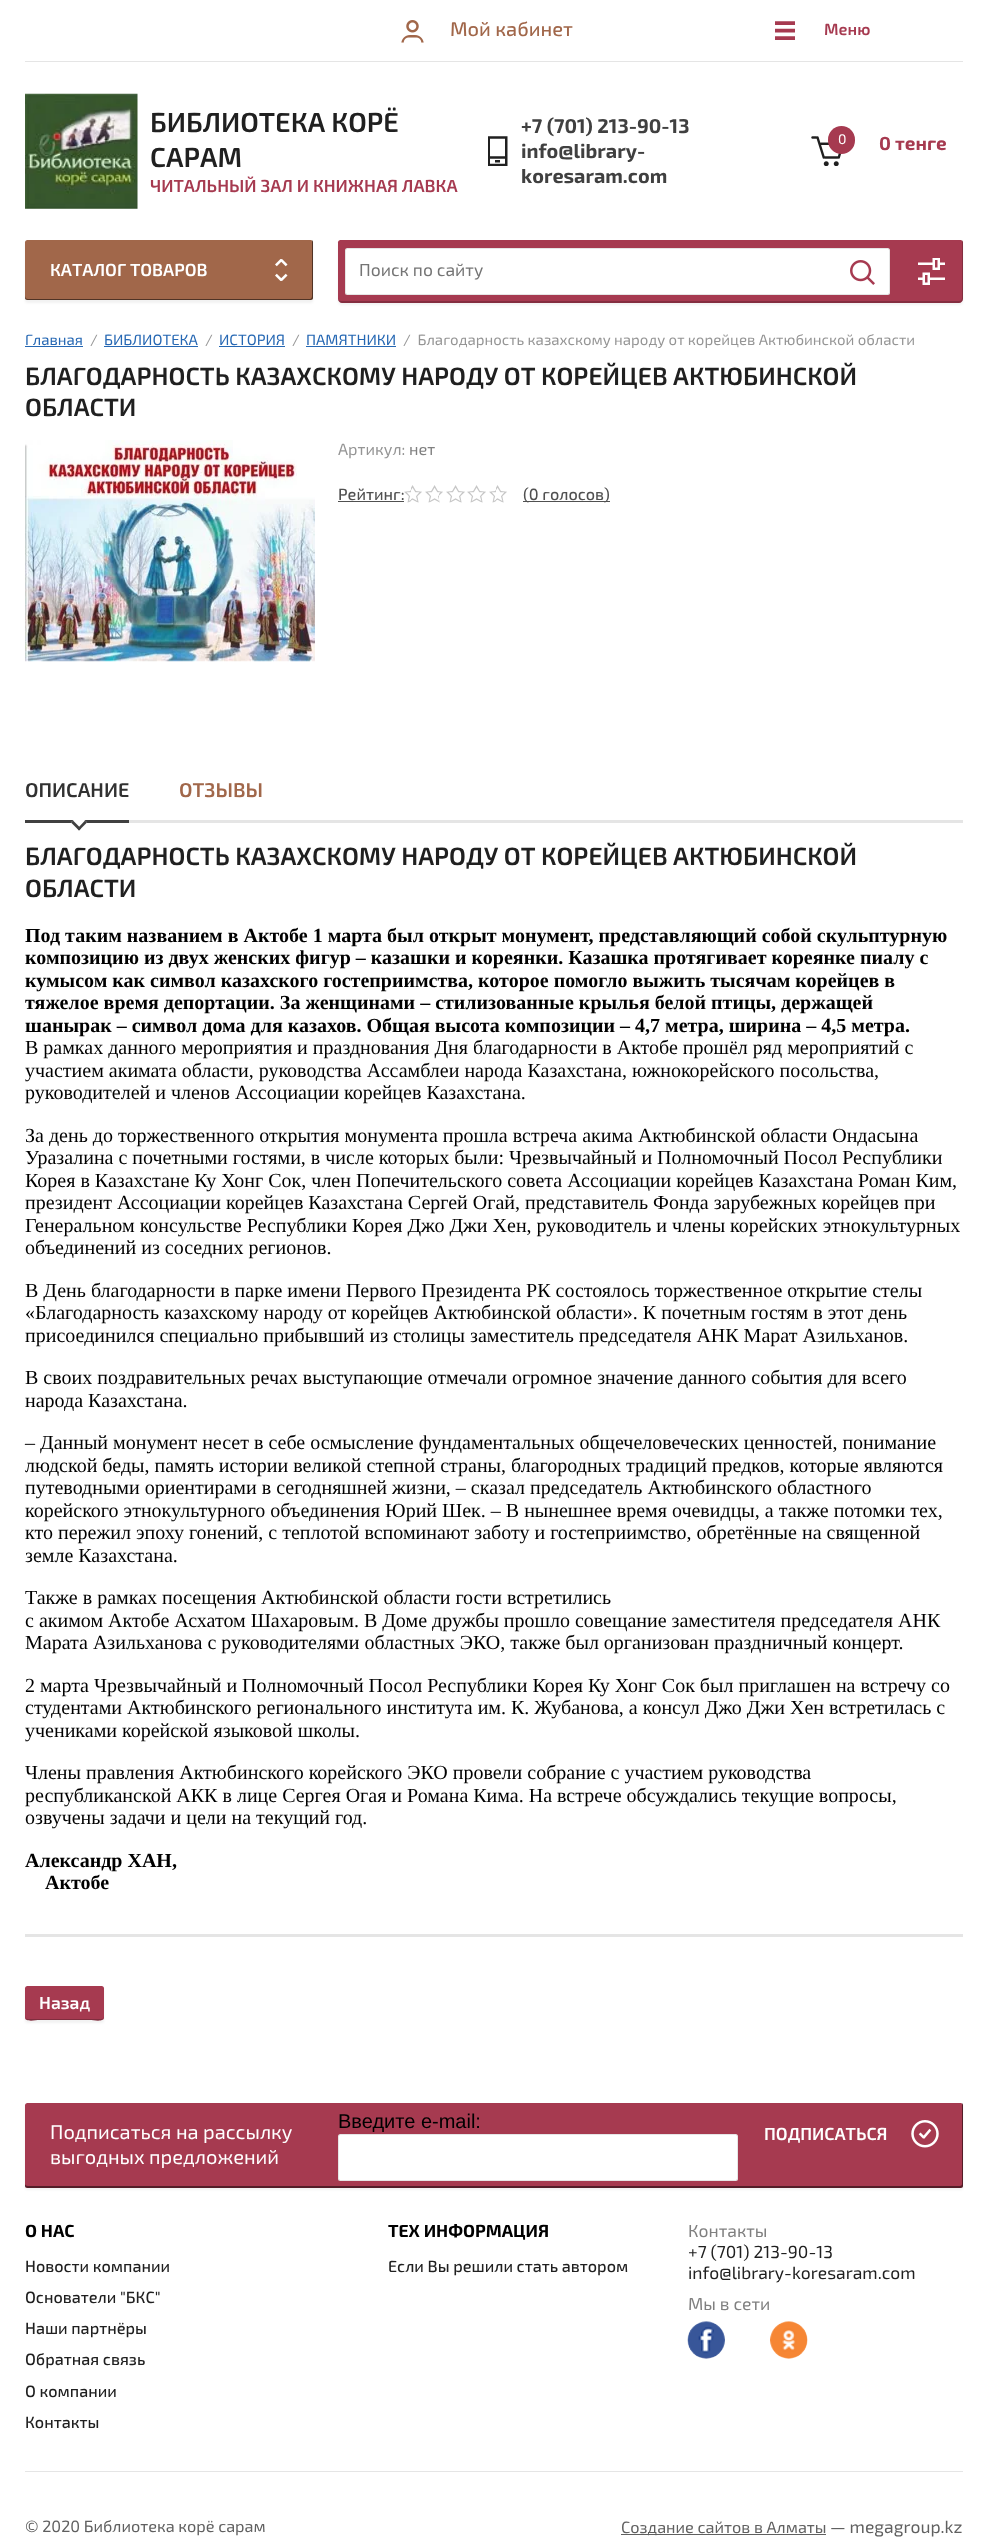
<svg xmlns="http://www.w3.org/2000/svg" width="987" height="2539">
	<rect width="100%" height="100%" fill="#FFFFFF" />
	<rect x="25" y="61" width="938" height="1" fill="#E5E5E5" />
	<image x="401" y="20" width="23" height="23" href="assets/img1.png" />
	<text x="450" y="36" font-family="'Exo 2'" font-size="20" font-weight="500" fill="#A1674A">Мой кабинет</text>
	<image x="775" y="21" width="20" height="19" href="assets/img2.png" />
	<text x="824" y="35" font-family="'Exo 2'" font-size="16.25" font-weight="600" fill="#A63A50">Меню</text>
	<image x="25" y="93" width="113" height="116" href="assets/img3.png" />
	<g font-family="'Exo 2'" font-size="27.5" font-weight="600" fill="#202020">
		<text x="150" y="132">БИБЛИОТЕКА КОРЁ</text>
		<text x="150" y="167">САРАМ</text>
	</g>
	<text x="150" y="192" font-family="'Exo 2'" font-size="17.5" font-weight="600" fill="#A63A50">ЧИТАЛЬНЫЙ ЗАЛ И КНИЖНАЯ ЛАВКА</text>
	<image x="488" y="136" width="20" height="30" href="assets/img4.png" />
	<g font-family="'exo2'" font-size="20" font-weight="700" fill="#404040">
		<text x="521" y="133">+7 (701) 213-90-13</text>
		<text x="521" y="158">info@library-</text>
		<text x="521" y="183">koresaram.com</text>
	</g>
	<image x="811" y="136" width="31" height="30" href="assets/img5.png" />
	<rect x="828" y="126" width="27" height="28" rx="13.5" fill="#A63A50" />
	<text x="838" y="144" font-family="'exo2'" font-size="14" fill="#FFFFFF">0</text>
	<text x="879" y="150" font-family="'exo2'" font-size="19" font-weight="700" fill="#A63A50">0 тенге</text>
	<rect x="25" y="243" width="288" height="60" rx="2.5" fill="#000000" fill-opacity="0.05" filter="blur(1px)" />
	<rect x="25" y="240" width="288" height="60" rx="2.5" fill="#A1674A" />
	<image x="275" y="259" width="13" height="22" href="assets/img6.png" />
	<path d="M25 296V298C25 299 26 300 28 300H310C312 300 313 299 313 298V242C313 242 313 241 312 240V296C312 298 311 299 310 299H28C26 299 25 298 25 296Z" fill="#000000" fill-opacity="0.5" />
	<text x="50" y="276" font-family="'Exo 2'" font-size="17.5" font-weight="600" fill="#FFFFFF">КАТАЛОГ ТОВАРОВ</text>
	<rect x="338" y="243" width="625" height="62" rx="4" fill="#000000" fill-opacity="0.05" filter="blur(1px)" />
	<path d="M340.5 240H960.5C962 240 963 241 963 242.5V299C963 301 961 303 959 303H342C340 303 338 301 338 299V242.5C338 241 339 240 340.5 240Z" fill="#A63A50" />
	<path d="M338 298V299C338 301 340 303 342 303H959C961 303 963 301 963 299V242C963 242 963 241 962 240V298C962 300 961 301 959 301H341C339 301 338 300 338 298Z" fill="#000000" fill-opacity="0.2" />
	<rect x="345" y="248" width="545" height="47" rx="2.5" fill="#FFFFFF" />
	<rect x="345.5" y="248.5" width="544" height="46" rx="2" fill="none" stroke="#000000" stroke-opacity="0.1" />
	<text x="359" y="276" font-family="'exo2'" font-size="17.5" fill="#757575">Поиск по сайту</text>
	<image x="850" y="260" width="25" height="25" href="assets/img7.png" />
	<image x="918" y="258" width="27" height="27" href="assets/img8.png" />
	<text x="25" y="345" font-family="'exo2'" font-size="15" fill="#2567B3">Главная</text>
	<rect x="25" y="346" width="58" height="1" fill="#2567B3" />
	<text x="90" y="345" font-family="'exo2'" font-size="15" fill="#959595">/</text>
	<text x="104" y="345" font-family="'exo2'" font-size="15" fill="#2567B3">БИБЛИОТЕКА</text>
	<rect x="104" y="346" width="94" height="1" fill="#2567B3" />
	<text x="205" y="345" font-family="'exo2'" font-size="15" fill="#959595">/</text>
	<text x="219" y="345" font-family="'exo2'" font-size="15" fill="#2567B3">ИСТОРИЯ</text>
	<rect x="219" y="346" width="66" height="1" fill="#2567B3" />
	<text x="292" y="345" font-family="'exo2'" font-size="15" fill="#959595">/</text>
	<text x="306" y="345" font-family="'exo2'" font-size="15" fill="#2567B3">ПАМЯТНИКИ</text>
	<rect x="306" y="346" width="90" height="1" fill="#2567B3" />
	<text x="403" y="345" font-family="'exo2'" font-size="15" fill="#959595" xml:space="preserve">/  Благодарность казахскому народу от корейцев Актюбинской области</text>
	<g font-family="'Exo 2'" font-size="25" font-weight="600" fill="#202020">
		<text x="25" y="385">БЛАГОДАРНОСТЬ КАЗАХСКОМУ НАРОДУ ОТ КОРЕЙЦЕВ АКТЮБИНСКОЙ</text>
		<text x="25" y="416">ОБЛАСТИ</text>
	</g>
	<image x="25" y="440" width="290" height="222" href="assets/img9.png" />
	<text x="338" y="455" font-family="'exo2'" font-size="16.25" fill="#959595">Артикул:</text>
	<text x="409" y="455" font-family="'exo2'" font-size="16.25" fill="#808080">нет</text>
	<text x="338" y="500" font-family="'Exo 2'" font-size="16.25" font-weight="500" fill="#505050">Рейтинг:</text>
	<rect x="338" y="501" width="66" height="1" fill="#505050" />
	<image x="404" y="485" width="103" height="18" href="assets/img10.png" />
	<rect x="523" y="501" width="87" height="1" fill="#505050" />
	<text x="523" y="500" font-family="'Exo 2'" font-size="16.25" font-weight="500" fill="#505050">(0 голосов)</text>
	<rect x="129" y="820" width="834" height="3" fill="#E5E5E5" />
	<rect x="25" y="820" width="104" height="3" fill="#404040" />
	<text x="25" y="797" font-family="'Exo 2'" font-size="20" font-weight="600" fill="#313131">ОПИСАНИЕ</text>
	<path d="M79 830.5L71 822.5L79 814.5L87 822.5Z" fill="#FFFFFF" />
	<path d="M79 830.5L71 822.5L73 820.5L81 828.5Z" fill="#404040" />
	<path d="M79 830.5L77.5 828.5L85 820.5L87 822.5Z" fill="#404040" />
	<text x="179" y="797" font-family="'Exo 2'" font-size="20" font-weight="600" fill="#A1674A">ОТЗЫВЫ</text>
	<rect x="25" y="1934" width="938" height="3" fill="#E5E5E5" />
	<g font-family="'Exo 2'" font-size="25" font-weight="600" fill="#202020">
		<text x="25" y="865">БЛАГОДАРНОСТЬ КАЗАХСКОМУ НАРОДУ ОТ КОРЕЙЦЕВ АКТЮБИНСКОЙ</text>
		<text x="25" y="897">ОБЛАСТИ</text>
	</g>
	<g font-family="Liberation Serif" font-size="20" font-weight="700" fill="#000000">
		<text x="25" y="942">Под таким названием в Актобе 1 марта был открыт монумент, представляющий собой скульптурную</text>
		<text x="25" y="964">композицию из двух женских фигур – казашки и кореянки. Казашка протягивает кореянке пиалу с</text>
		<text x="25" y="987">кумысом как символ казахского гостеприимства, которое помогло выжить тысячам корейцев в</text>
		<text x="25" y="1009">тяжелое время депортации. За женщинами – стилизованные крылья белой птицы, держащей</text>
		<text x="25" y="1032">шанырак – символ дома для казахов. Общая высота композиции – 4,7 метра, ширина – 4,5 метра.</text>
	</g>
	<g font-family="Liberation Serif" font-size="20" fill="#000000">
		<text x="25" y="1054">В рамках данного мероприятия и празднования Дня благодарности в Актобе прошёл ряд мероприятий с</text>
		<text x="25" y="1077">участием акимата области, руководства Ассамблеи народа Казахстана, южнокорейского посольства,</text>
		<text x="25" y="1099">руководителей и членов Ассоциации корейцев Казахстана.</text>
		<text x="25" y="1142">За день до торжественного открытия монумента прошла встреча акима Актюбинской области Ондасына</text>
		<text x="25" y="1164">Уразалина с почетными гостями, в числе которых были: Чрезвычайный и Полномочный Посол Республики</text>
		<text x="25" y="1187">Корея в Казахстане Ку Хонг Сок, член Попечительского совета Ассоциации корейцев Казахстана Роман Ким,</text>
		<text x="25" y="1209">президент Ассоциации корейцев Казахстана Сергей Огай, представитель Фонда зарубежных корейцев при</text>
		<text x="25" y="1232">Генеральном консульстве Республики Корея Джо Джи Хен, руководитель и члены корейских этнокультурных</text>
		<text x="25" y="1254">объединений из соседних регионов.</text>
		<text x="25" y="1297">В День благодарности в парке имени Первого Президента РК состоялось торжественное открытие стелы</text>
		<text x="25" y="1319">«Благодарность казахскому народу от корейцев Актюбинской области». К почетным гостям в этот день</text>
		<text x="25" y="1342">присоединился специально прибывший из столицы заместитель председателя АНК Марат Азильханов.</text>
		<text x="25" y="1384">В своих поздравительных речах выступающие отмечали огромное значение данного события для всего</text>
		<text x="25" y="1407">народа Казахстана.</text>
		<text x="25" y="1449">– Данный монумент несет в себе осмысление фундаментальных общечеловеческих ценностей, понимание</text>
		<text x="25" y="1472">людской беды, память истории великой степной страны, благородных традиций предков, которые являются</text>
		<text x="25" y="1494">путеводными ориентирами в сегодняшней жизни, – сказал председатель Актюбинского областного</text>
		<text x="25" y="1517">корейского этнокультурного объединения Юрий Шек. – В нынешнее время очевидцы, а также потомки тех,</text>
		<text x="25" y="1539">кто пережил эпоху гонений, с теплотой вспоминают заботу и гостеприимство, обретённые на священной</text>
		<text x="25" y="1562">земле Казахстана.</text>
		<text x="25" y="1604">Также в рамках посещения Актюбинской области гости встретились</text>
		<text x="25" y="1627">с акимом Актобе Асхатом Шахаровым. В Доме дружбы прошло совещание заместителя председателя АНК</text>
		<text x="25" y="1649">Марата Азильханова с руководителями областных ЭКО, также был организован праздничный концерт.</text>
		<text x="25" y="1692">2 марта Чрезвычайный и Полномочный Посол Республики Корея Ку Хонг Сок был приглашен на встречу со</text>
		<text x="25" y="1714">студентами Актюбинского регионального института им. К. Жубанова, а консул Джо Джи Хен встретилась с</text>
		<text x="25" y="1737">учениками корейской языковой школы.</text>
		<text x="25" y="1779">Члены правления Актюбинского корейского ЭКО провели собрание с участием руководства</text>
		<text x="25" y="1802">республиканской АКК в лице Сергея Огая и Романа Кима. На встрече обсуждались текущие вопросы,</text>
		<text x="25" y="1824">озвучены задачи и цели на текущий год.</text>
	</g>
	<g font-family="Liberation Serif" font-size="20" font-weight="700" fill="#000000">
		<text x="25" y="1867">Александр ХАН,</text>
		<text x="45" y="1889">Актобе</text>
	</g>
	<rect x="25" y="1989" width="79" height="34" rx="2.5" fill="#000000" fill-opacity="0.05" filter="blur(1px)" />
	<rect x="25" y="1986" width="79" height="34" rx="2.5" fill="#A63A50" />
	<path d="M25 2016C25 2023 34 2020 40 2020H89C95 2020 104 2023 104 2016C104 2018 103 2019 101 2019H28C26 2019 25 2018 25 2016Z" fill="#802D3E" />
	<text x="39" y="2009" font-family="'Exo 2'" font-size="17.5" font-weight="600" fill="#FFFFFF">Назад</text>
	<rect x="25" y="2105" width="938" height="85" rx="2.5" fill="#000000" fill-opacity="0.05" filter="blur(1px)" />
	<rect x="25" y="2103" width="938" height="85" rx="2.5" fill="#A63A50" />
	<path d="M25 2184V2186C25 2187 26 2188 28 2188H960C962 2188 963 2187 963 2186V2106C963 2105 963 2104 962 2103V2184C962 2185 961 2186 960 2186H28C26 2186 25 2185 25 2184Z" fill="#000000" fill-opacity="0.5" />
	<g font-family="'exo2'" font-size="20" fill="#FFFFFF">
		<text x="50" y="2139">Подписаться на рассылку</text>
		<text x="50" y="2164">выгодных предложений</text>
	</g>
	<text x="338" y="2128" font-family="Liberation Sans" font-size="20" fill="#000000">Введите e-mail:</text>
	<rect x="338" y="2134" width="400" height="47" rx="2.5" fill="#FFFFFF" />
	<rect x="338.5" y="2134.5" width="399" height="46" rx="2" fill="none" stroke="#000000" stroke-opacity="0.1" />
	<image x="911" y="2120" width="28" height="28" href="assets/img11.png" />
	<text x="764" y="2140" font-family="'Exo 2'" font-size="17.5" font-weight="600" fill="#FFFFFF">ПОДПИСАТЬСЯ</text>
	<text x="25" y="2237" font-family="'exo2'" font-size="17.5" font-weight="700" fill="#000000">О НАС</text>
	<g font-family="'Exo 2'" font-size="16.25" font-weight="500" fill="#202020">
		<text x="25" y="2272">Новости компании</text>
		<text x="25" y="2303">Основатели "БКС"</text>
		<text x="25" y="2334">Наши партнёры</text>
		<text x="25" y="2365">Обратная связь</text>
		<text x="25" y="2397">О компании</text>
		<text x="25" y="2428">Контакты</text>
	</g>
	<text x="388" y="2237" font-family="'exo2'" font-size="17.5" font-weight="700" fill="#000000">ТЕХ ИНФОРМАЦИЯ</text>
	<text x="388" y="2272" font-family="'Exo 2'" font-size="16.25" font-weight="500" fill="#202020">Если Вы решили стать автором</text>
	<text x="688" y="2237" font-family="'exo2'" font-size="17.5" fill="#808080">Контакты</text>
	<g font-family="'exo2'" font-size="17.5" fill="#202020">
		<text x="688" y="2258">+7 (701) 213-90-13</text>
		<text x="688" y="2279">info@library-koresaram.com</text>
	</g>
	<text x="688" y="2310" font-family="'exo2'" font-size="17.5" fill="#808080">Мы в сети</text>
	<image x="687" y="2321" width="38" height="38" href="assets/img12.png" />
	<image x="770" y="2321" width="38" height="38" href="assets/img13.png" />
	<rect x="25" y="2471" width="938" height="1" fill="#E5E5E5" />
	<text x="25" y="2532" font-family="'exo2'" font-size="16.25" fill="#606060">© 2020 Библиотека корё сарам</text>
	<rect x="621" y="2534" width="205" height="1" fill="#606060" />
	<text x="621" y="2533" font-family="'exo2'" font-size="16.25" fill="#606060">Создание сайтов в Алматы</text>
	<text x="830" y="2533" font-family="'exo2'" font-size="17.5" fill="#606060">— megagroup.kz</text>
</svg>
